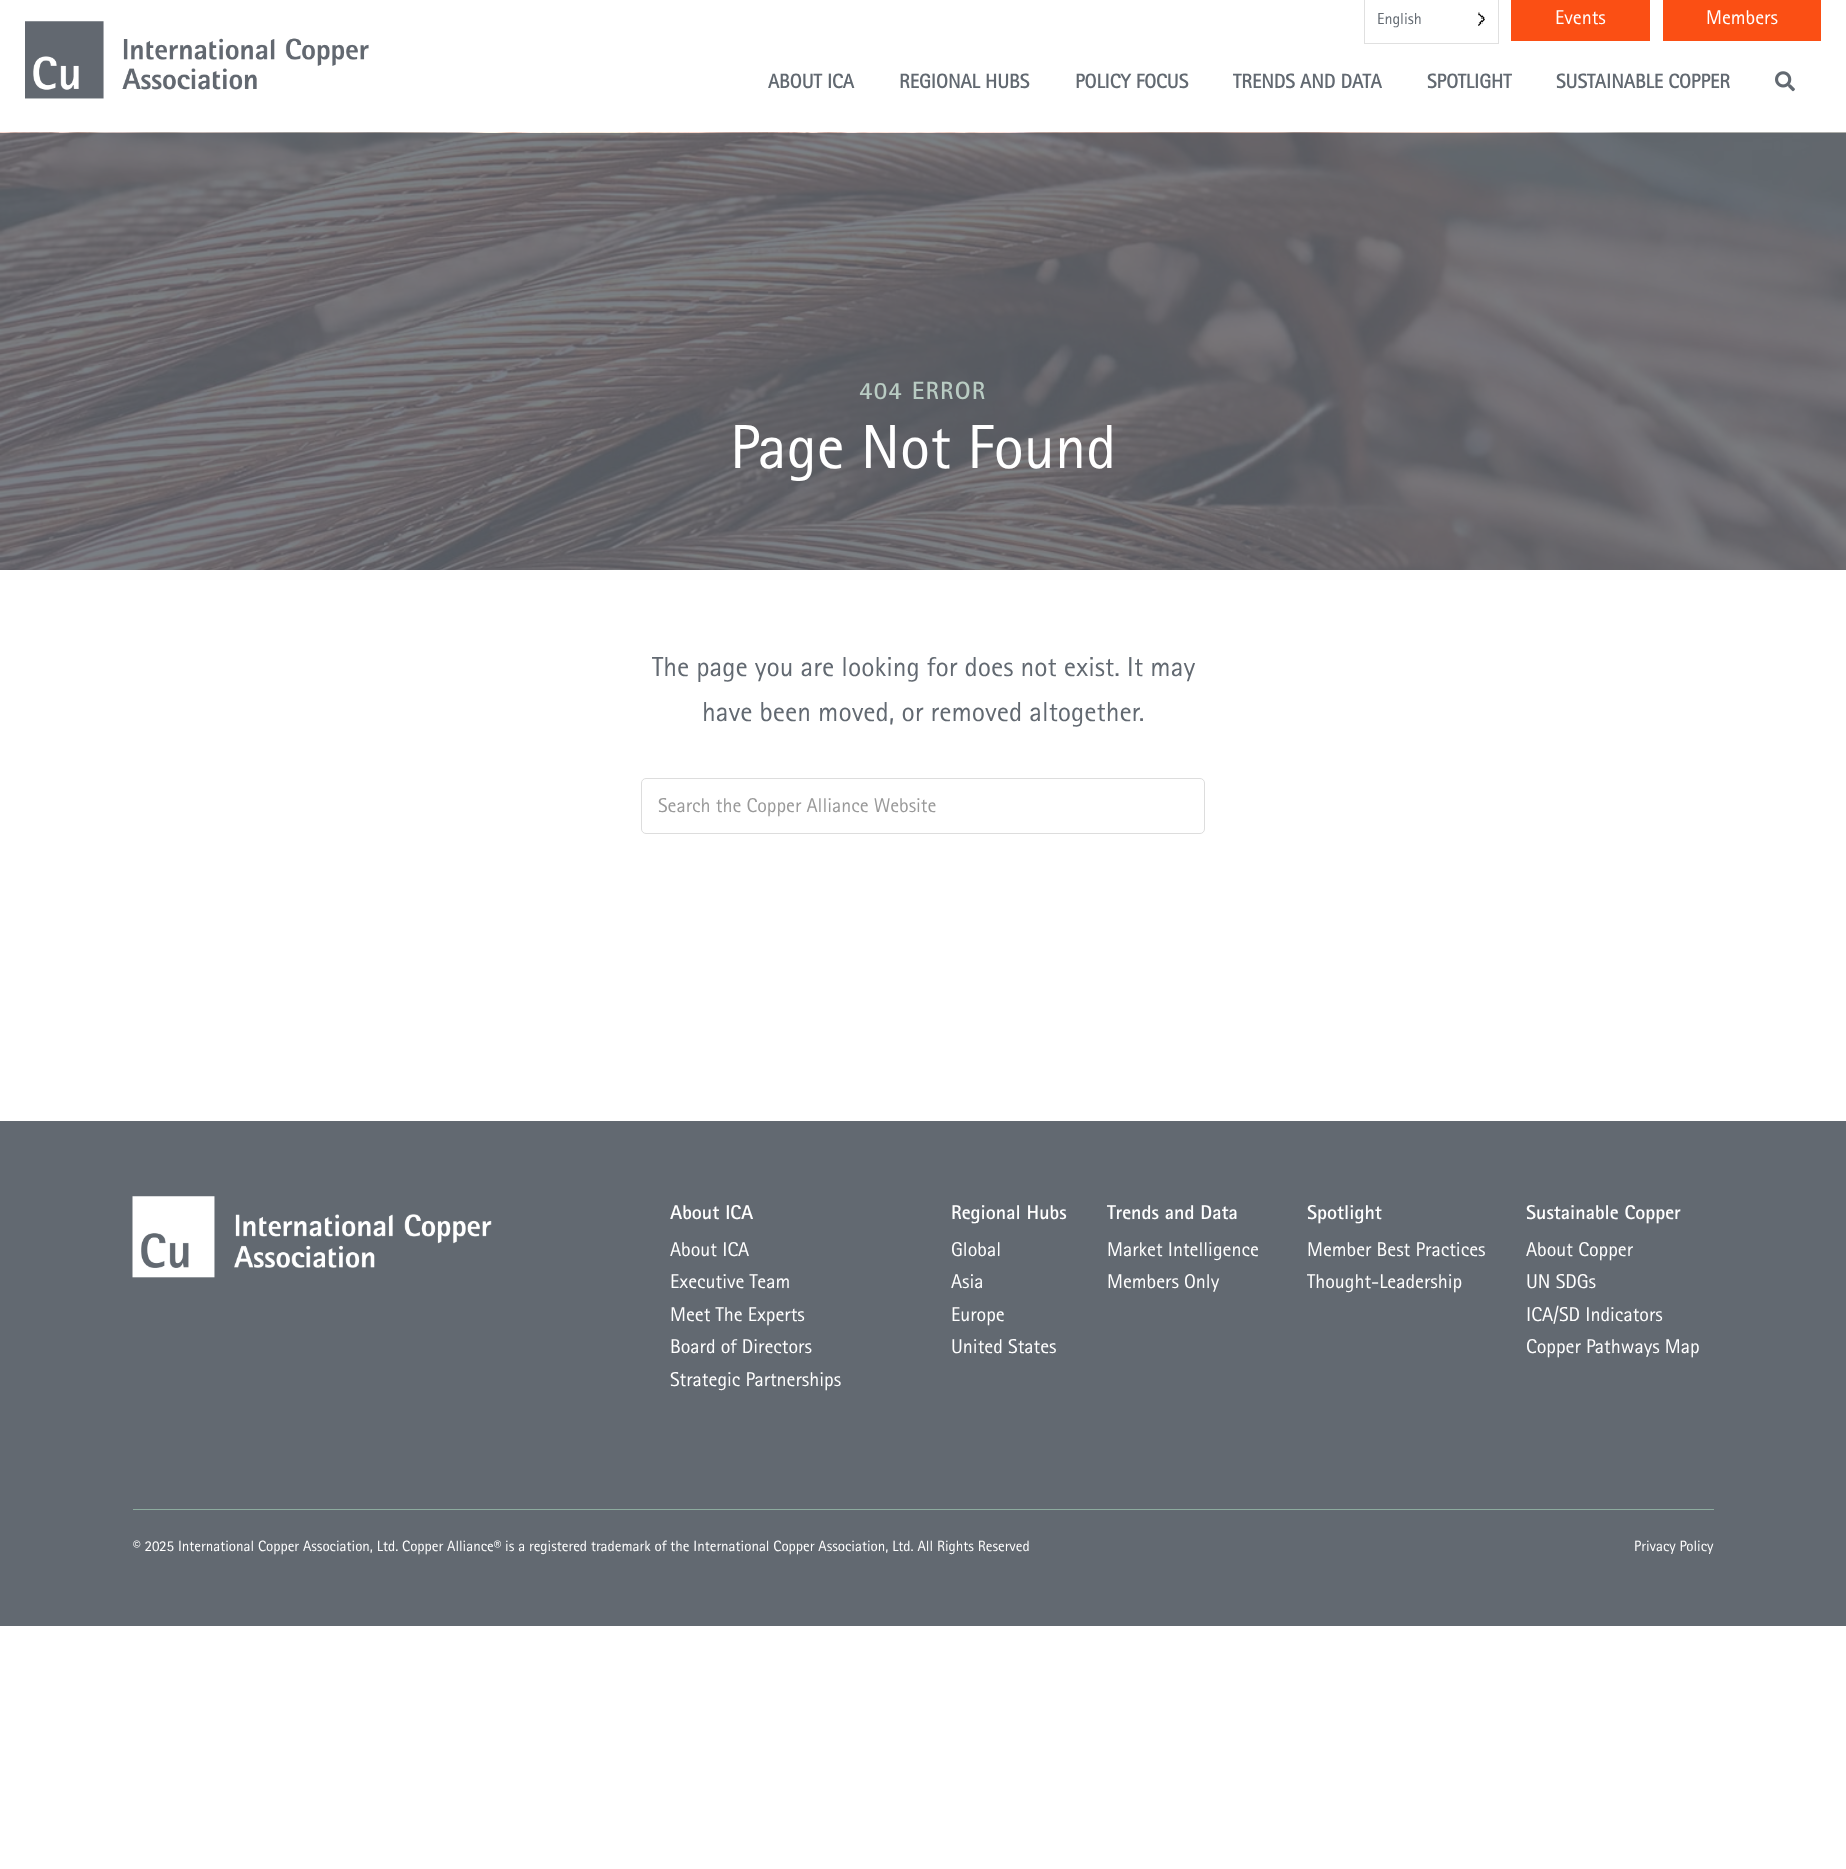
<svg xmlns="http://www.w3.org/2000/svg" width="1846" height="1869">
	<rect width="100%" height="100%" fill="#FFFFFF" />
	<image x="25" y="21" width="344" height="78" href="assets/img1.png" />
	<rect x="1364.5" y="-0.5" width="134" height="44" fill="none" stroke="#E0E0E0" />
	<text x="1377" y="24" font-family="'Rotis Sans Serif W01'" font-size="16" fill="#626971">English</text>
	<image x="1478" y="12" width="7" height="14" href="assets/img2.png" />
	<rect x="1511" y="0" width="139" height="41" fill="#FB4F14" />
	<text x="1555" y="24" font-family="'Rotis Sans Serif W01'" font-size="20" fill="#FFFFFF">Events</text>
	<rect x="1663" y="0" width="158" height="41" fill="#FB4F14" />
	<text x="1706" y="24" font-family="'Rotis Sans Serif W01'" font-size="20" fill="#FFFFFF">Members</text>
	<g font-family="'Rotis Sans Serif W01'" font-size="20" font-weight="700" fill="#626971">
		<text x="768" y="88">ABOUT ICA</text>
		<text x="899" y="88">REGIONAL HUBS</text>
		<text x="1075" y="88">POLICY FOCUS</text>
		<text x="1233" y="88">TRENDS AND DATA</text>
		<text x="1427" y="88">SPOTLIGHT</text>
		<text x="1556" y="88">SUSTAINABLE COPPER</text>
	</g>
	<image x="1775" y="71" width="20" height="21" href="assets/img3.png" />
	<image x="0" y="132" width="1846" height="438" href="assets/img4.png" />
	<text x="859" y="399" font-family="'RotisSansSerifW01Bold'" font-size="25" font-weight="700" letter-spacing="1.25" fill="#B9CCC3">404 ERROR</text>
	<text x="730" y="468" font-family="'Rotis Sans Serif W01'" font-size="62.5" fill="#FFFFFF">Page Not Found</text>
	<g font-family="'Rotis Sans Serif W01'" font-size="27.5" fill="#626971">
		<text x="652" y="676">The page you are looking for does not exist. It may</text>
		<text x="702" y="721">have been moved, or removed altogether.</text>
	</g>
	<rect x="641.5" y="778.5" width="563" height="55" rx="4.5" fill="none" stroke="#DDDDDD" />
	<text x="658" y="812" font-family="'Rotis Sans Serif W01'" font-size="20" fill="#999999">Search the Copper Alliance Website</text>
	<rect x="0" y="1121" width="1846" height="505" fill="#626971" />
	<image x="132" y="1196" width="360" height="82" href="assets/img5.png" />
	<text x="670" y="1219" font-family="'RotisSansSerifW01Bold'" font-size="20" font-weight="700" fill="#FFFFFF">About ICA</text>
	<g font-family="'Rotis Sans Serif W01'" font-size="20" fill="#FFFFFF">
		<text x="670" y="1256">About ICA</text>
		<text x="670" y="1288">Executive Team</text>
		<text x="670" y="1321">Meet The Experts</text>
		<text x="670" y="1353">Board of Directors</text>
		<text x="670" y="1386">Strategic Partnerships</text>
	</g>
	<text x="951" y="1219" font-family="'RotisSansSerifW01Bold'" font-size="20" font-weight="700" fill="#FFFFFF">Regional Hubs</text>
	<g font-family="'Rotis Sans Serif W01'" font-size="20" fill="#FFFFFF">
		<text x="951" y="1256">Global</text>
		<text x="951" y="1288">Asia</text>
		<text x="951" y="1321">Europe</text>
		<text x="951" y="1353">United States</text>
	</g>
	<text x="1107" y="1219" font-family="'RotisSansSerifW01Bold'" font-size="20" font-weight="700" fill="#FFFFFF">Trends and Data</text>
	<g font-family="'Rotis Sans Serif W01'" font-size="20" fill="#FFFFFF">
		<text x="1107" y="1256">Market Intelligence</text>
		<text x="1107" y="1288">Members Only</text>
	</g>
	<text x="1307" y="1219" font-family="'RotisSansSerifW01Bold'" font-size="20" font-weight="700" fill="#FFFFFF">Spotlight</text>
	<g font-family="'Rotis Sans Serif W01'" font-size="20" fill="#FFFFFF">
		<text x="1307" y="1256">Member Best Practices</text>
		<text x="1307" y="1288">Thought-Leadership</text>
	</g>
	<text x="1526" y="1219" font-family="'RotisSansSerifW01Bold'" font-size="20" font-weight="700" fill="#FFFFFF">Sustainable Copper</text>
	<g font-family="'Rotis Sans Serif W01'" font-size="20" fill="#FFFFFF">
		<text x="1526" y="1256">About Copper</text>
		<text x="1526" y="1288">UN SDGs</text>
		<text x="1526" y="1321">ICA/SD Indicators</text>
		<text x="1526" y="1353">Copper Pathways Map</text>
	</g>
	<rect x="133" y="1509" width="1581" height="1" fill="#8CAB9E" />
	<g font-family="'Rotis Sans Serif W01'" font-size="15" fill="#FFFFFF">
		<text x="133" y="1551">© 2025 International Copper Association, Ltd. Copper Alliance® is a registered trademark of the International Copper Association, Ltd. All Rights Reserved</text>
		<text x="1634" y="1551">Privacy Policy</text>
	</g>
</svg>
